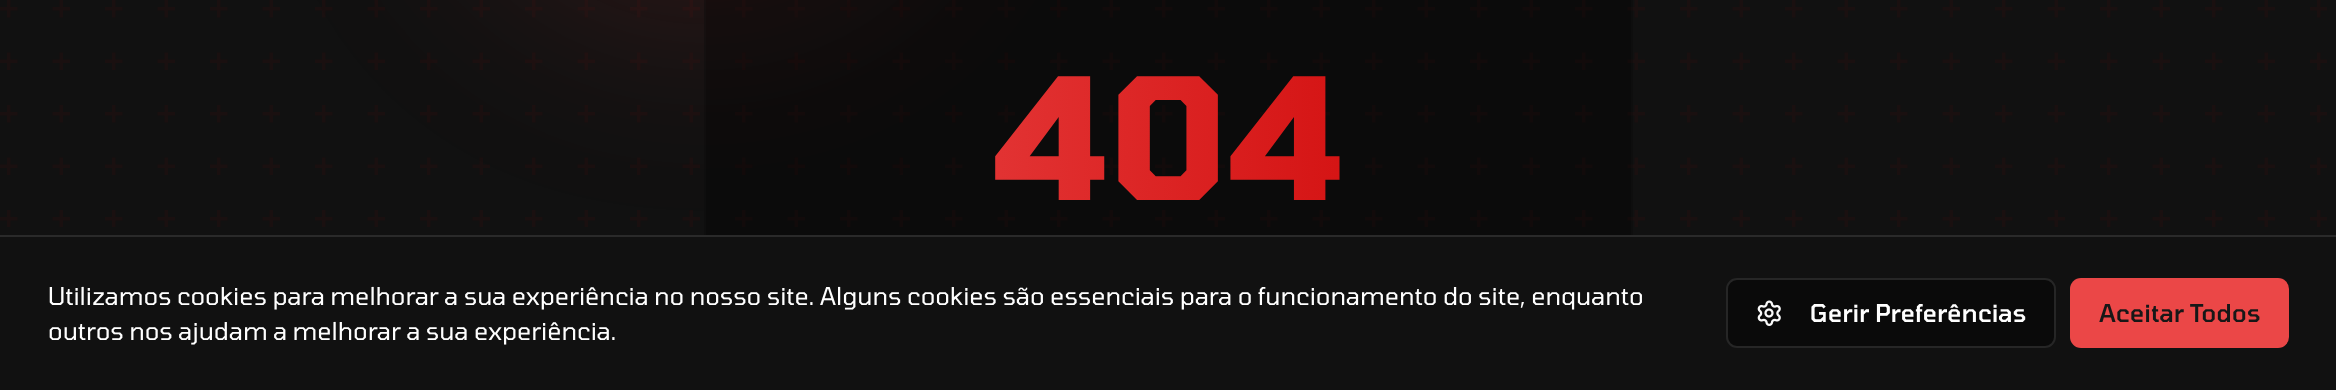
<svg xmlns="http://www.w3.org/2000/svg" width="2336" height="390">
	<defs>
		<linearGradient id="g1" gradientUnits="userSpaceOnUse" x1="761" y1="134" x2="1575" y2="134"><stop offset="0" stop-color="#EB4747" /><stop offset="1" stop-color="#CC0000" /></linearGradient>
	</defs>
	<rect width="100%" height="100%" fill="#111111" />
	<image x="0" y="0" width="2327" height="227" href="assets/img1.png" />
	<rect x="480" y="-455" width="448" height="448" rx="224" fill="#EB4747" fill-opacity="0.2" filter="blur(112px)" />
	<rect x="704" y="0" width="929" height="235" fill="#000000" fill-opacity="0.3" />
	<rect x="705" y="-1" width="927" height="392" fill="none" stroke="#1F1F1F" stroke-opacity="0.2" stroke-width="2" />
	<text x="991" y="200" font-family="Tomorrow" font-size="168" font-weight="700" fill="url(#g1)">404</text>
	<rect x="704" y="237" width="929" height="153" fill="#111111" />
	<rect x="0" y="235" width="2336" height="2" fill="#2A2A2A" />
	<g font-family="Tomorrow" font-size="24.5" fill="#FFFFFF">
		<text x="48" y="305">Utilizamos cookies para melhorar a sua experiência no nosso site. Alguns cookies são essenciais para o funcionamento do site, enquanto</text>
		<text x="48" y="340">outros nos ajudam a melhorar a sua experiência.</text>
	</g>
	<rect x="1727" y="279" width="328" height="68" rx="10" fill="#0A0A0A" stroke="#262626" stroke-width="2" />
	<image x="1757" y="300" width="24" height="26" href="assets/img2.png" />
	<text x="1810" y="322" font-family="Tomorrow" font-size="24.5" font-weight="500" fill="#FFFFFF">Gerir Preferências</text>
	<rect x="2070" y="278" width="219" height="70" rx="11" fill="#EB4747" />
	<text x="2099" y="322" font-family="Tomorrow" font-size="24.5" font-weight="500" fill="#171717">Aceitar Todos</text>
</svg>
